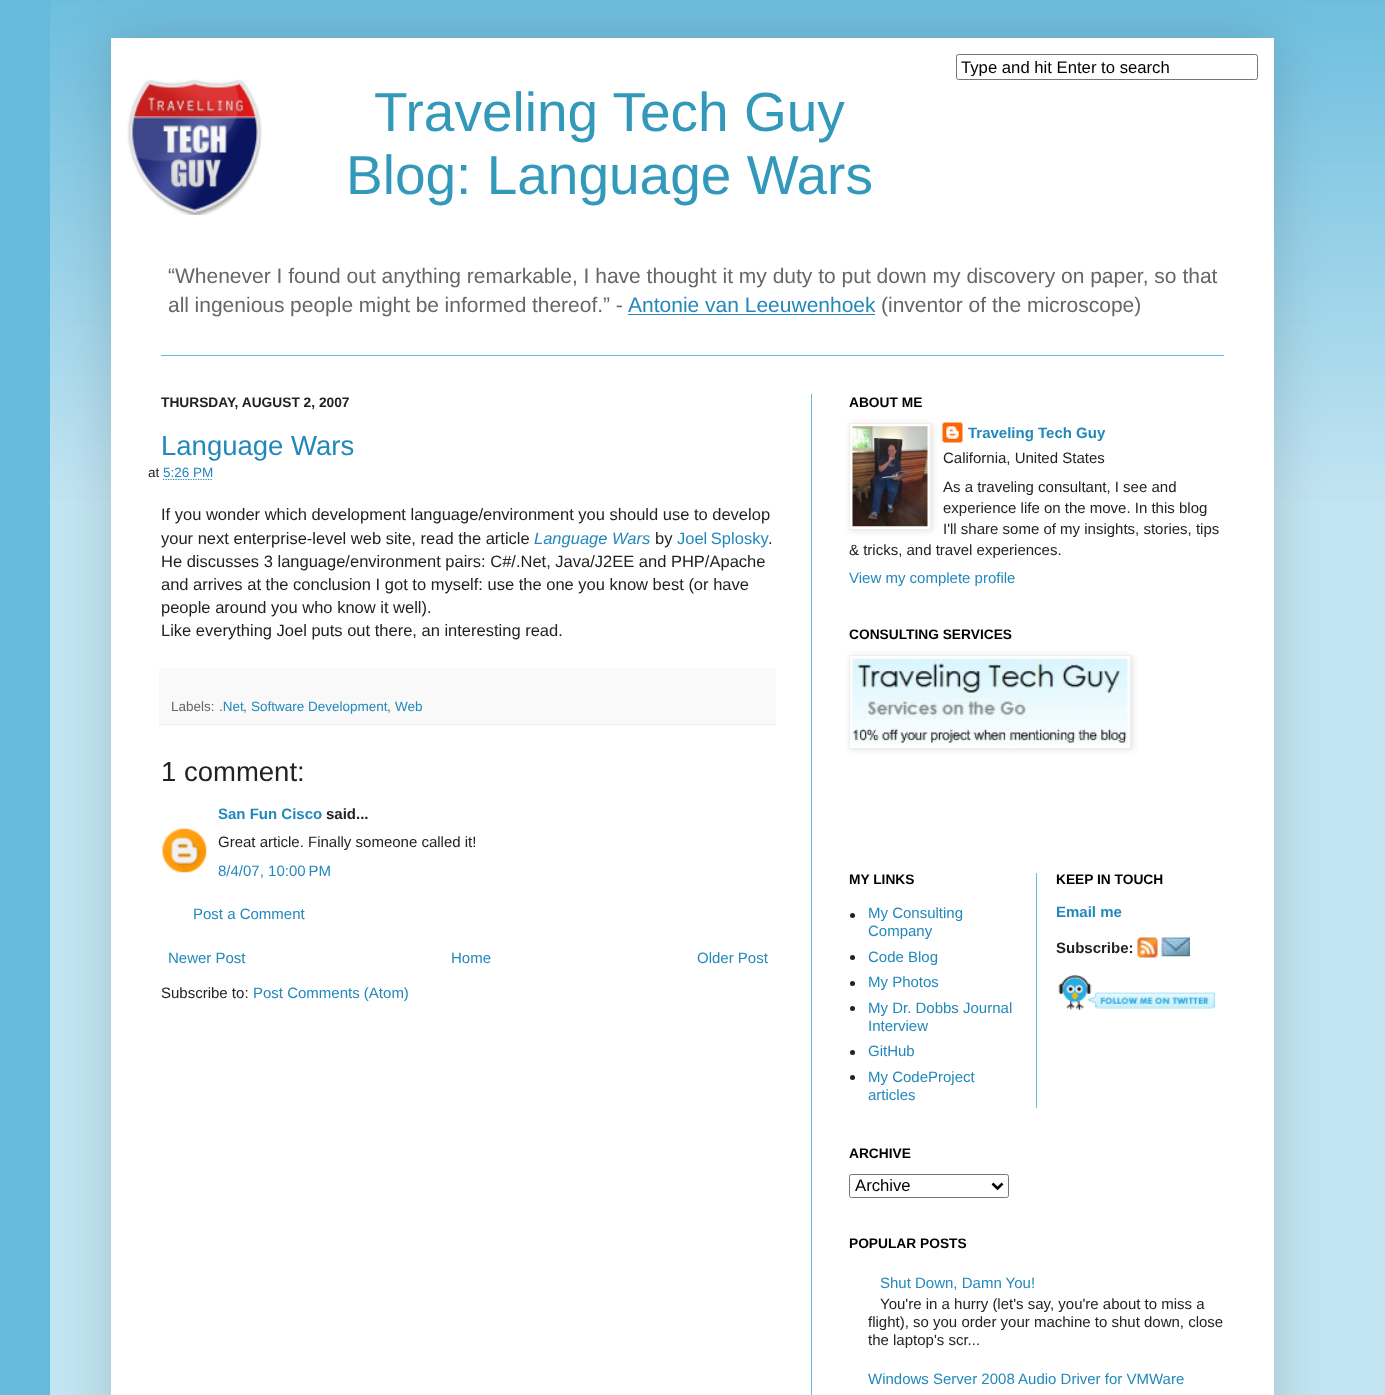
<svg xmlns="http://www.w3.org/2000/svg" width="1385" height="1395">
	<defs>
		<clipPath id="clip1"><rect x="961" y="58" width="292" height="18" /></clipPath>
		<clipPath id="clip2"><path d="M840 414H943V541H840ZM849 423H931V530H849Z" clip-rule="evenodd" /></clipPath>
	</defs>
	<rect width="100%" height="100%" fill="#66BBDD" />
	<image x="50" y="0" width="1335" height="500" href="assets/img1.png" />
	<rect x="50" y="500" width="1335" height="895" fill="#C1E5F2" />
	<rect x="111" y="38" width="1163" height="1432" fill="#000000" fill-opacity="0.15" filter="blur(25px)" />
	<rect x="111" y="38" width="1163" height="1357" fill="#FFFFFF" />
	<rect x="956.5" y="54.5" width="301" height="25" rx="2" fill="none" stroke="#767676" />
	<g clip-path="url(#clip1)">
		<text x="961" y="73" font-family="Liberation Sans" font-size="16.7" fill="#000000">Type and hit Enter to search</text>
	</g>
	<image x="127" y="79" width="135" height="136" href="assets/img2.png" />
	<g font-family="Liberation Sans" font-size="55" fill="#3399BB">
		<text x="374" y="131">Traveling Tech Guy</text>
		<text x="346" y="194">Blog: Language Wars</text>
	</g>
	<g font-family="Liberation Sans" font-size="21" fill="#666666">
		<text x="168" y="283">“Whenever I found out anything remarkable, I have thought it my duty to put down my discovery on paper, so that</text>
		<text x="168" y="312" word-spacing="-0.25">all ingenious people might be informed thereof.” -</text>
	</g>
	<text x="628" y="312" font-family="Liberation Sans" font-size="21" fill="#2288BB">Antonie van Leeuwenhoek</text>
	<rect x="628" y="314" width="247" height="1" fill="#2288BB" />
	<text x="881" y="312" font-family="Liberation Sans" font-size="21" fill="#666666">(inventor of the microscope)</text>
	<rect x="161" y="355" width="1063" height="1" fill="#66BBDD" />
	<rect x="811" y="394" width="1" height="1001" fill="#66BBDD" />
	<text x="161" y="407" font-family="Liberation Sans" font-size="13.75" font-weight="700" fill="#222222">THURSDAY, AUGUST 2, 2007</text>
	<text x="161" y="455" font-family="Liberation Sans" font-size="27.5" fill="#2288BB">Language Wars</text>
	<text x="148" y="477" font-family="Liberation Sans" font-size="13.5" fill="#222222">at</text>
	<text x="163" y="477" font-family="Liberation Sans" font-size="13.5" fill="#2288BB">5:26 PM</text>
	<path d="M163 479.5H213" fill="none" stroke="#2288BB" stroke-width="1.2" stroke-dasharray="1.25 1.25" />
	<g font-family="Liberation Sans" font-size="16.5" fill="#222222">
		<text x="161" y="520">If you wonder which development language/environment you should use to develop</text>
		<text x="161" y="544">your next enterprise-level web site, read the article</text>
	</g>
	<text x="534" y="544" font-family="Liberation Sans" font-size="16.5" font-style="italic" fill="#2288BB">Language Wars</text>
	<text x="655" y="544" font-family="Liberation Sans" font-size="16.5" fill="#222222">by</text>
	<text x="677" y="544" word-spacing="-1" font-family="Liberation Sans" font-size="16.5" fill="#2288BB">Joel Splosky</text>
	<g font-family="Liberation Sans" font-size="16.5" fill="#222222">
		<text x="768" y="544">.</text>
		<text x="161" y="567">He discusses 3 language/environment pairs: C#/.Net, Java/J2EE and PHP/Apache</text>
		<text x="161" y="590">and arrives at the conclusion I got to myself: use the one you know best (or have</text>
		<text x="161" y="613">people around you who know it well).</text>
		<text x="161" y="636">Like everything Joel puts out there, an interesting read.</text>
	</g>
	<rect x="159" y="668" width="617" height="56" fill="#F9F9F9" />
	<rect x="159" y="724" width="617" height="1" fill="#EEEEEE" />
	<text x="171" y="711" font-family="Liberation Sans" font-size="13.5" fill="#666666">Labels:</text>
	<text x="219" y="711" font-family="Liberation Sans" font-size="13.5" fill="#2288BB">.Net</text>
	<text x="243" y="711" font-family="Liberation Sans" font-size="13.5" fill="#666666">,</text>
	<text x="251" y="711" font-family="Liberation Sans" font-size="13.5" fill="#2288BB">Software Development</text>
	<text x="387" y="711" font-family="Liberation Sans" font-size="13.5" fill="#666666">,</text>
	<text x="395" y="711" font-family="Liberation Sans" font-size="13.5" fill="#2288BB">Web</text>
	<text x="161" y="781" font-family="Liberation Sans" font-size="27.5" fill="#222222">1 comment:</text>
	<text x="218" y="819" font-family="Liberation Sans" font-size="15" font-weight="700" fill="#2288BB">San Fun Cisco</text>
	<text x="326" y="819" font-family="Liberation Sans" font-size="15" font-weight="700" fill="#222222">said...</text>
	<image x="162" y="828" width="45" height="45" href="assets/img3.png" />
	<text x="218" y="847" font-family="Liberation Sans" font-size="15" fill="#222222">Great article. Finally someone called it!</text>
	<g font-family="Liberation Sans" font-size="15" fill="#2288BB">
		<text x="218" y="876">8/4/07, 10:00 PM</text>
		<text x="193" y="919">Post a Comment</text>
		<text x="168" y="963">Newer Post</text>
		<text x="451" y="963">Home</text>
		<text x="697" y="963">Older Post</text>
	</g>
	<text x="161" y="998" font-family="Liberation Sans" font-size="15" fill="#222222">Subscribe to:</text>
	<text x="253" y="998" font-family="Liberation Sans" font-size="15" fill="#2288BB">Post Comments (Atom)</text>
	<text x="849" y="407" font-family="Liberation Sans" font-size="13.75" font-weight="700" fill="#000000">ABOUT ME</text>
	<image x="942" y="422" width="21" height="21" href="assets/img5.png" />
	<g clip-path="url(#clip2)">
		<rect x="850" y="424" width="83" height="107" fill="#000000" fill-opacity="0.1" filter="blur(3px)" />
	</g>
	<rect x="849.5" y="423.5" width="81" height="106" fill="none" stroke="#EEEEEE" />
	<image x="852" y="426" width="76" height="101" href="assets/img4.png" />
	<text x="968" y="438" font-family="Liberation Sans" font-size="15" font-weight="700" fill="#2288BB">Traveling Tech Guy</text>
	<g font-family="Liberation Sans" font-size="15" fill="#222222">
		<text x="943" y="463">California, United States</text>
		<text x="943" y="492">As a traveling consultant, I see and</text>
		<text x="943" y="513">experience life on the move. In this blog</text>
		<text x="943" y="534">I'll share some of my insights, stories, tips</text>
		<text x="849" y="555">&amp; tricks, and travel experiences.</text>
	</g>
	<text x="849" y="583" font-family="Liberation Sans" font-size="15" fill="#2288BB">View my complete profile</text>
	<text x="849" y="639" font-family="Liberation Sans" font-size="13.75" font-weight="700" fill="#000000">CONSULTING SERVICES</text>
	<rect x="850" y="656" width="283" height="94" fill="#000000" fill-opacity="0.1" filter="blur(3px)" />
	<rect x="849.5" y="655.5" width="281" height="93" fill="#FFFFFF" stroke="#EEEEEE" />
	<image x="852" y="658" width="276" height="87" href="assets/img6.png" />
	<text x="849" y="884" font-family="Liberation Sans" font-size="13.75" font-weight="700" fill="#000000">MY LINKS</text>
	<circle cx="852.5" cy="915.5" r="2.5" fill="#222222" />
	<g font-family="Liberation Sans" font-size="15" fill="#2288BB">
		<text x="868" y="918">My Consulting</text>
		<text x="868" y="936">Company</text>
	</g>
	<circle cx="852.5" cy="957.5" r="2.5" fill="#222222" />
	<text x="868" y="962" font-family="Liberation Sans" font-size="15" fill="#2288BB">Code Blog</text>
	<circle cx="852.5" cy="983.5" r="2.5" fill="#222222" />
	<text x="868" y="987" font-family="Liberation Sans" font-size="15" fill="#2288BB">My Photos</text>
	<circle cx="852.5" cy="1008.5" r="2.5" fill="#222222" />
	<g font-family="Liberation Sans" font-size="15" fill="#2288BB">
		<text x="868" y="1013">My Dr. Dobbs Journal</text>
		<text x="868" y="1031">Interview</text>
	</g>
	<circle cx="852.5" cy="1052.5" r="2.5" fill="#222222" />
	<text x="868" y="1056" font-family="Liberation Sans" font-size="15" fill="#2288BB">GitHub</text>
	<circle cx="852.5" cy="1077.5" r="2.5" fill="#222222" />
	<g font-family="Liberation Sans" font-size="15" fill="#2288BB">
		<text x="868" y="1082">My CodeProject</text>
		<text x="868" y="1100">articles</text>
	</g>
	<rect x="1036" y="873" width="1" height="235" fill="#66BBDD" />
	<text x="1056" y="884" font-family="Liberation Sans" font-size="13.75" font-weight="700" fill="#000000">KEEP IN TOUCH</text>
	<text x="1056" y="917" font-family="Liberation Sans" font-size="15" font-weight="700" fill="#2288BB">Email me</text>
	<text x="1056" y="953" font-family="Liberation Sans" font-size="15" font-weight="700" fill="#222222">Subscribe:</text>
	<image x="1137" y="937" width="21" height="21" href="assets/img7.png" />
	<image x="1161" y="937" width="29" height="20" href="assets/img8.png" />
	<image x="1058" y="974" width="158" height="37" href="assets/img9.png" />
	<text x="849" y="1158" font-family="Liberation Sans" font-size="13.75" font-weight="700" fill="#000000">ARCHIVE</text>
	<rect x="849.5" y="1174.5" width="159" height="23" rx="2" fill="none" stroke="#767676" />
	<path d="M992.5 1183.5L997.5 1188.5L1002.5 1183.5" fill="none" stroke="#000000" stroke-width="2.5" />
	<text x="855" y="1191" font-family="Liberation Sans" font-size="16.7" fill="#000000">Archive</text>
	<text x="849" y="1248" font-family="Liberation Sans" font-size="13.75" font-weight="700" fill="#000000">POPULAR POSTS</text>
	<text x="880" y="1288" font-family="Liberation Sans" font-size="15" fill="#2288BB">Shut Down, Damn You!</text>
	<g font-family="Liberation Sans" font-size="15" fill="#222222">
		<text x="880" y="1309">You're in a hurry (let's say, you're about to miss a</text>
		<text x="868" y="1327">flight), so you order your machine to shut down, close</text>
		<text x="868" y="1345">the laptop's scr...</text>
	</g>
	<text x="868" y="1384" font-family="Liberation Sans" font-size="15" fill="#2288BB">Windows Server 2008 Audio Driver for VMWare</text>
</svg>
